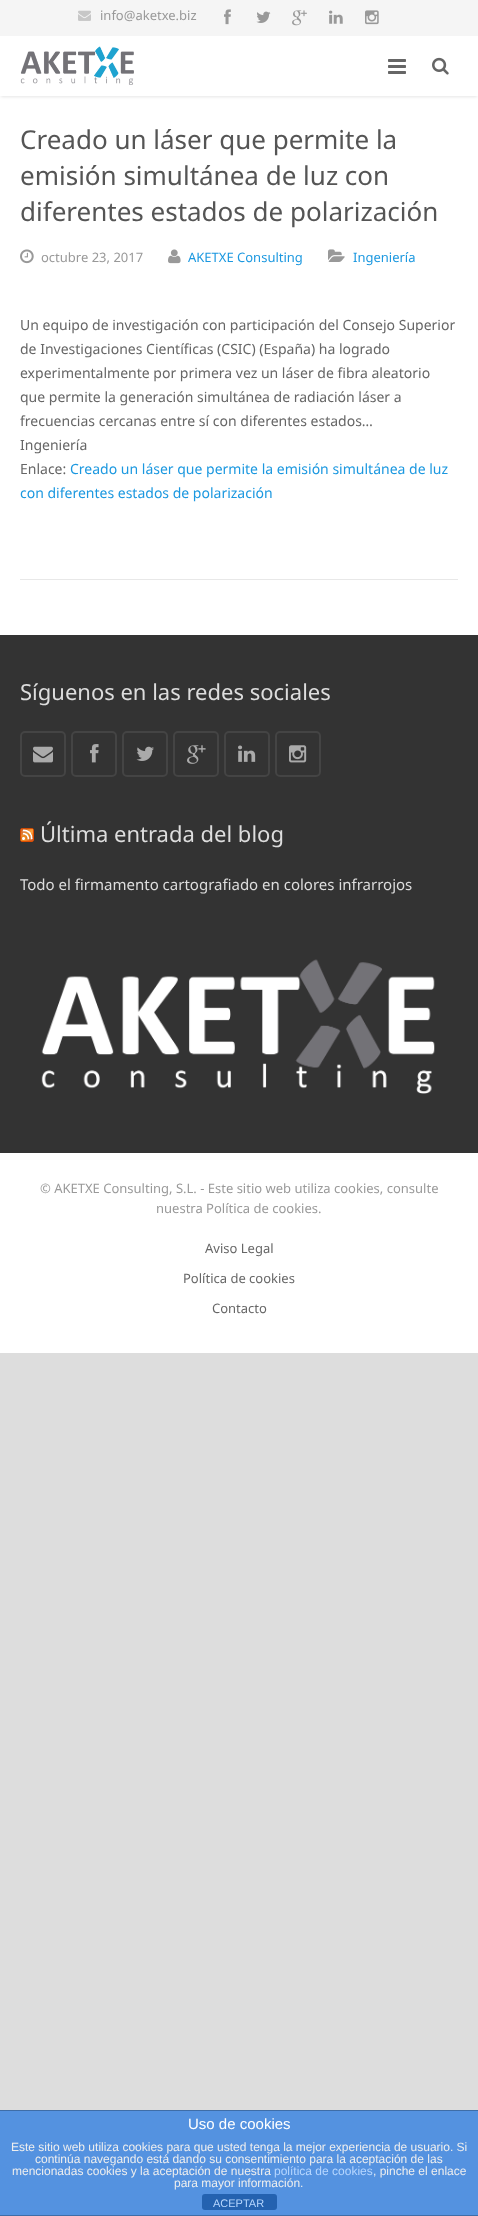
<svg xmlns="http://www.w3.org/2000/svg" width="478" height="2216">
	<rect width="100%" height="100%" fill="#DDDDDD" />
	<rect x="0" y="96" width="478" height="539" fill="#FFFFFF" />
	<rect x="0" y="0" width="478" height="36" fill="#F5F5F5" />
	<image x="78" y="10" width="13" height="11" href="assets/img1.png" />
	<text x="100" y="20" font-family="Noto Sans" font-size="13" fill="#999999">info@aketxe.biz</text>
	<image x="224" y="9" width="7" height="16" href="assets/img2.png" />
	<image x="256" y="11" width="15" height="12" href="assets/img3.png" />
	<image x="292" y="10" width="15" height="16" href="assets/img4.png" />
	<image x="329" y="10" width="14" height="14" href="assets/img5.png" />
	<image x="365" y="10" width="14" height="15" href="assets/img6.png" />
	<rect x="1" y="39" width="476" height="58" fill="#000000" fill-opacity="0.1" filter="blur(1.5px)" />
	<rect x="0" y="36" width="478" height="60" fill="#FFFFFF" />
	<image x="20" y="46" width="114" height="39" href="assets/img7.png" />
	<image x="388" y="59" width="18" height="15" href="assets/img8.png" />
	<image x="432" y="57" width="17" height="18" href="assets/img9.png" />
	<rect x="20" y="579" width="438" height="1" fill="#E8E8E8" />
	<g font-family="Noto Sans" font-size="26" fill="#555555">
		<text x="20" y="149">Creado un láser que permite la</text>
		<text x="20" y="185">emisión simultánea de luz con</text>
		<text x="20" y="221">diferentes estados de polarización</text>
	</g>
	<image x="20" y="249" width="14" height="15" href="assets/img10.png" />
	<text x="41" y="262" font-family="Noto Sans" font-size="13" fill="#999999">octubre 23, 2017</text>
	<image x="168" y="249" width="13" height="15" href="assets/img11.png" />
	<text x="188" y="262" font-family="Noto Sans" font-size="13" fill="#1B98E0">AKETXE Consulting</text>
	<image x="328" y="249" width="17" height="13" href="assets/img12.png" />
	<text x="353" y="262" font-family="Noto Sans" font-size="13" fill="#1B98E0">Ingeniería</text>
	<g font-family="Noto Sans" font-size="14" fill="#666666">
		<text x="20" y="330">Un equipo de investigación con participación del Consejo Superior</text>
		<text x="20" y="354">de Investigaciones Científicas (CSIC) (España) ha logrado</text>
		<text x="20" y="378">experimentalmente por primera vez un láser de fibra aleatorio</text>
		<text x="20" y="402">que permite la generación simultánea de radiación láser a</text>
		<text x="20" y="426">frecuencias cercanas entre sí con diferentes estados…</text>
		<text x="20" y="450">Ingeniería</text>
		<text x="20" y="474">Enlace:</text>
	</g>
	<g font-family="Noto Sans" font-size="14" fill="#1B98E0">
		<text x="70" y="474">Creado un láser que permite la emisión simultánea de luz</text>
		<text x="20" y="498">con diferentes estados de polarización</text>
	</g>
	<rect x="0" y="635" width="478" height="518" fill="#333333" />
	<text x="20" y="700" font-family="Noto Sans" font-size="22" fill="#DDDDDD">Síguenos en las redes sociales</text>
	<rect x="21" y="732" width="44" height="44" rx="4" fill="none" stroke="#444444" stroke-width="2" />
	<image x="33" y="746" width="20" height="17" href="assets/img13.png" />
	<rect x="72" y="732" width="44" height="44" rx="4" fill="none" stroke="#444444" stroke-width="2" />
	<image x="90" y="744" width="9" height="19" href="assets/img14.png" />
	<rect x="123" y="732" width="44" height="44" rx="4" fill="none" stroke="#444444" stroke-width="2" />
	<image x="136" y="746" width="18" height="15" href="assets/img15.png" />
	<rect x="174" y="732" width="44" height="44" rx="4" fill="none" stroke="#444444" stroke-width="2" />
	<image x="187" y="745" width="19" height="19" href="assets/img16.png" />
	<rect x="225" y="732" width="44" height="44" rx="4" fill="none" stroke="#444444" stroke-width="2" />
	<image x="238" y="745" width="18" height="17" href="assets/img17.png" />
	<rect x="276" y="732" width="44" height="44" rx="4" fill="none" stroke="#444444" stroke-width="2" />
	<image x="289" y="745" width="18" height="18" href="assets/img18.png" />
	<image x="20" y="828" width="14" height="14" href="assets/img19.png" />
	<text x="40" y="842" font-family="Noto Sans" font-size="22" fill="#DDDDDD">Última entrada del blog</text>
	<text x="20" y="890" font-family="Noto Sans" font-size="15" fill="#DDDDDD">Todo el firmamento cartografiado en colores infrarrojos</text>
	<image x="41" y="959" width="394" height="135" href="assets/img20.png" />
	<rect x="0" y="1153" width="478" height="200" fill="#FFFFFF" />
	<g font-family="Noto Sans" font-size="13" fill="#999999">
		<text x="40" y="1193">© AKETXE Consulting, S.L. - Este sitio web utiliza cookies, consulte</text>
		<text x="156" y="1213">nuestra Política de cookies.</text>
	</g>
	<g font-family="Noto Sans" font-size="13" fill="#666666">
		<text x="205" y="1253">Aviso Legal</text>
		<text x="183" y="1283">Política de cookies</text>
		<text x="212" y="1313">Contacto</text>
	</g>
	<rect x="0" y="2111" width="478" height="104" fill="#5492E0" />
	<rect x="0" y="2110" width="478" height="1" fill="#3F6DA7" />
	<rect x="0" y="2215" width="478" height="1" fill="#3F6DA7" />
	<text x="188" y="2129" font-family="Liberation Sans" font-size="15" fill="#FFFFFF">Uso de cookies</text>
	<g font-family="Liberation Sans" font-size="12" fill="#EEEEEE">
		<text x="11" y="2151">Este sitio web utiliza cookies para que usted tenga la mejor experiencia de usuario. Si</text>
		<text x="35" y="2163">continúa navegando está dando su consentimiento para la aceptación de las</text>
		<text x="12" y="2175">mencionadas cookies y la aceptación de nuestra</text>
	</g>
	<text x="274" y="2175" font-family="Liberation Sans" font-size="12" fill="#B7D7FF">política de cookies</text>
	<g font-family="Liberation Sans" font-size="12" fill="#EEEEEE">
		<text x="373" y="2175">, pinche el enlace</text>
		<text x="174" y="2187">para mayor información.</text>
	</g>
	<rect x="202" y="2194" width="75" height="16" rx="3" fill="#2462B0" />
	<text x="213" y="2207" font-family="Liberation Sans" font-size="11" fill="#B7D7FF">ACEPTAR</text>
</svg>
